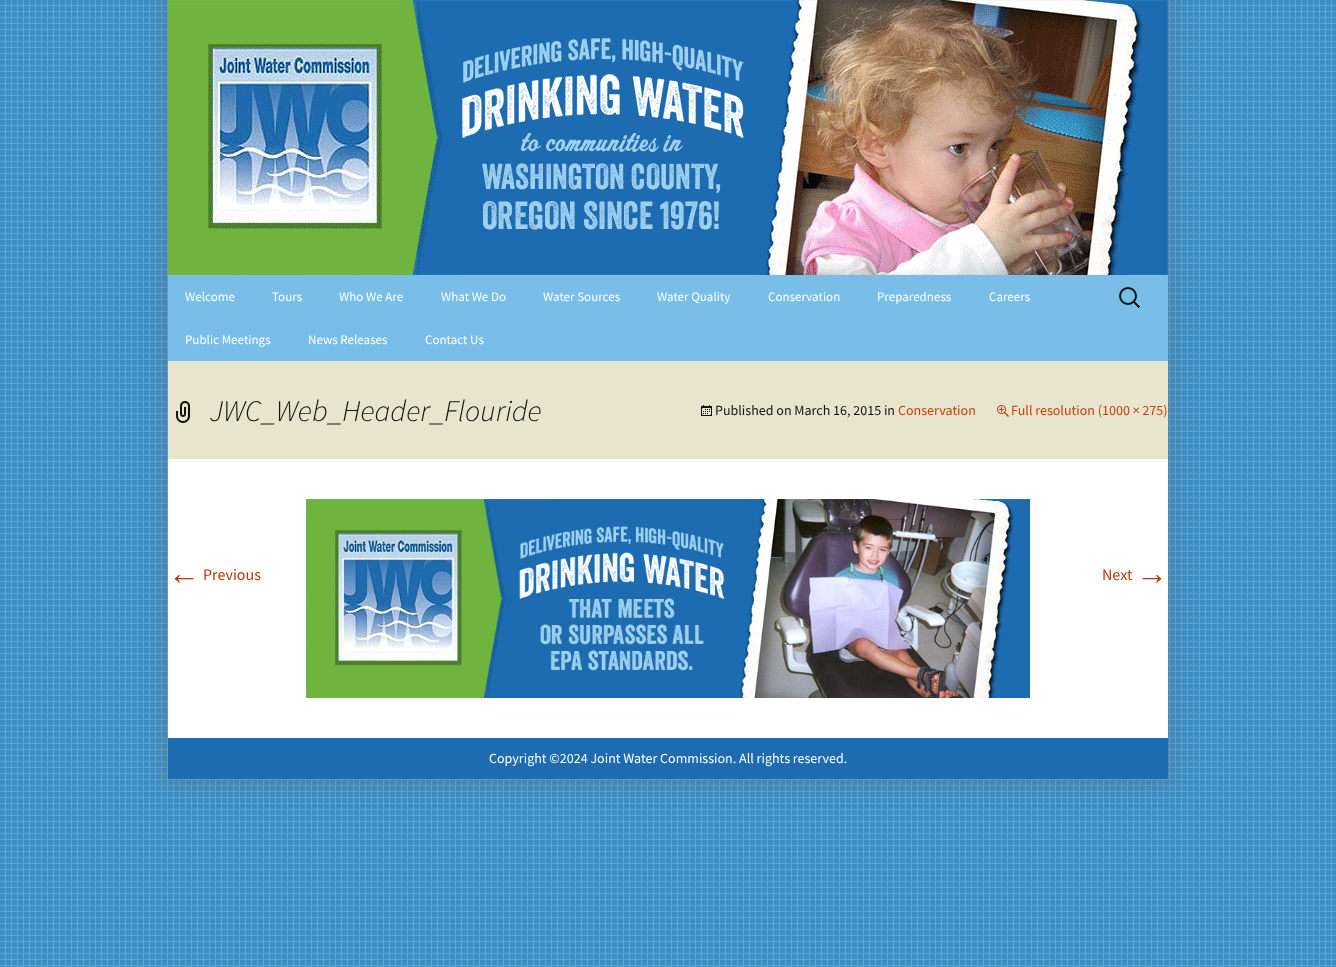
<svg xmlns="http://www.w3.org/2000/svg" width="1336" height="967">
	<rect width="100%" height="100%" fill="#FFFFFF" />
	<image x="0" y="0" width="1336" height="967" href="assets/img1.png" />
	<rect x="163" y="-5" width="1010" height="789" fill="#666666" fill-opacity="0.3" filter="blur(10px)" />
	<image x="168" y="0" width="1000" height="275" href="assets/img2.png" />
	<rect x="168" y="275" width="1000" height="86" fill="#79BDE9" />
	<g font-family="Source Sans Pro" font-size="13" fill="#FFFFFF">
		<text x="185" y="301">Welcome</text>
		<text x="272" y="301">Tours</text>
		<text x="339" y="301">Who We Are</text>
		<text x="441" y="301">What We Do</text>
		<text x="543" y="301">Water Sources</text>
		<text x="657" y="301">Water Quality</text>
		<text x="768" y="301">Conservation</text>
		<text x="877" y="301">Preparedness</text>
		<text x="989" y="301">Careers</text>
		<text x="185" y="344">Public Meetings</text>
		<text x="308" y="344">News Releases</text>
		<text x="425" y="344">Contact Us</text>
	</g>
	<image x="1119" y="287" width="21" height="21" href="assets/img3.png" />
	<rect x="168" y="361" width="1000" height="98" fill="#E8E5CE" />
	<image x="176" y="401" width="14" height="22" href="assets/img4.png" />
	<text x="210" y="421" font-family="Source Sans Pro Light" font-size="30" font-weight="300" font-style="italic" fill="#141412">JWC_Web_Header_Flouride</text>
	<image x="701" y="405" width="11" height="11" href="assets/img5.png" />
	<text x="715" y="415" font-family="Source Sans Pro" font-size="14" fill="#141412">Published on March 16, 2015 in</text>
	<text x="898" y="415" font-family="Source Sans Pro" font-size="14" fill="#CA3C08">Conservation</text>
	<image x="997" y="405" width="12" height="12" href="assets/img6.png" />
	<text x="1011" y="415" font-family="Source Sans Pro" font-size="14" fill="#CA3C08">Full resolution (1000 × 275)</text>
	<rect x="168" y="459" width="1000" height="279" fill="#FFFFFF" />
	<image x="306" y="499" width="724" height="199" href="assets/img7.png" />
	<text x="168" y="584" font-family="Liberation Sans" font-size="32" fill="#BC360A">←</text>
	<g font-family="Source Sans Pro" font-size="16" fill="#BC360A">
		<text x="203" y="580">Previous</text>
		<text x="1102" y="580">Next</text>
	</g>
	<text x="1136" y="584" font-family="Liberation Sans" font-size="32" fill="#BC360A">→</text>
	<rect x="168" y="738" width="1000" height="41" fill="#1D6CB1" />
	<text x="489" y="763" font-family="Source Sans Pro" font-size="14" fill="#FFFFFF">Copyright ©2024 Joint Water Commission. All rights reserved.</text>
</svg>
